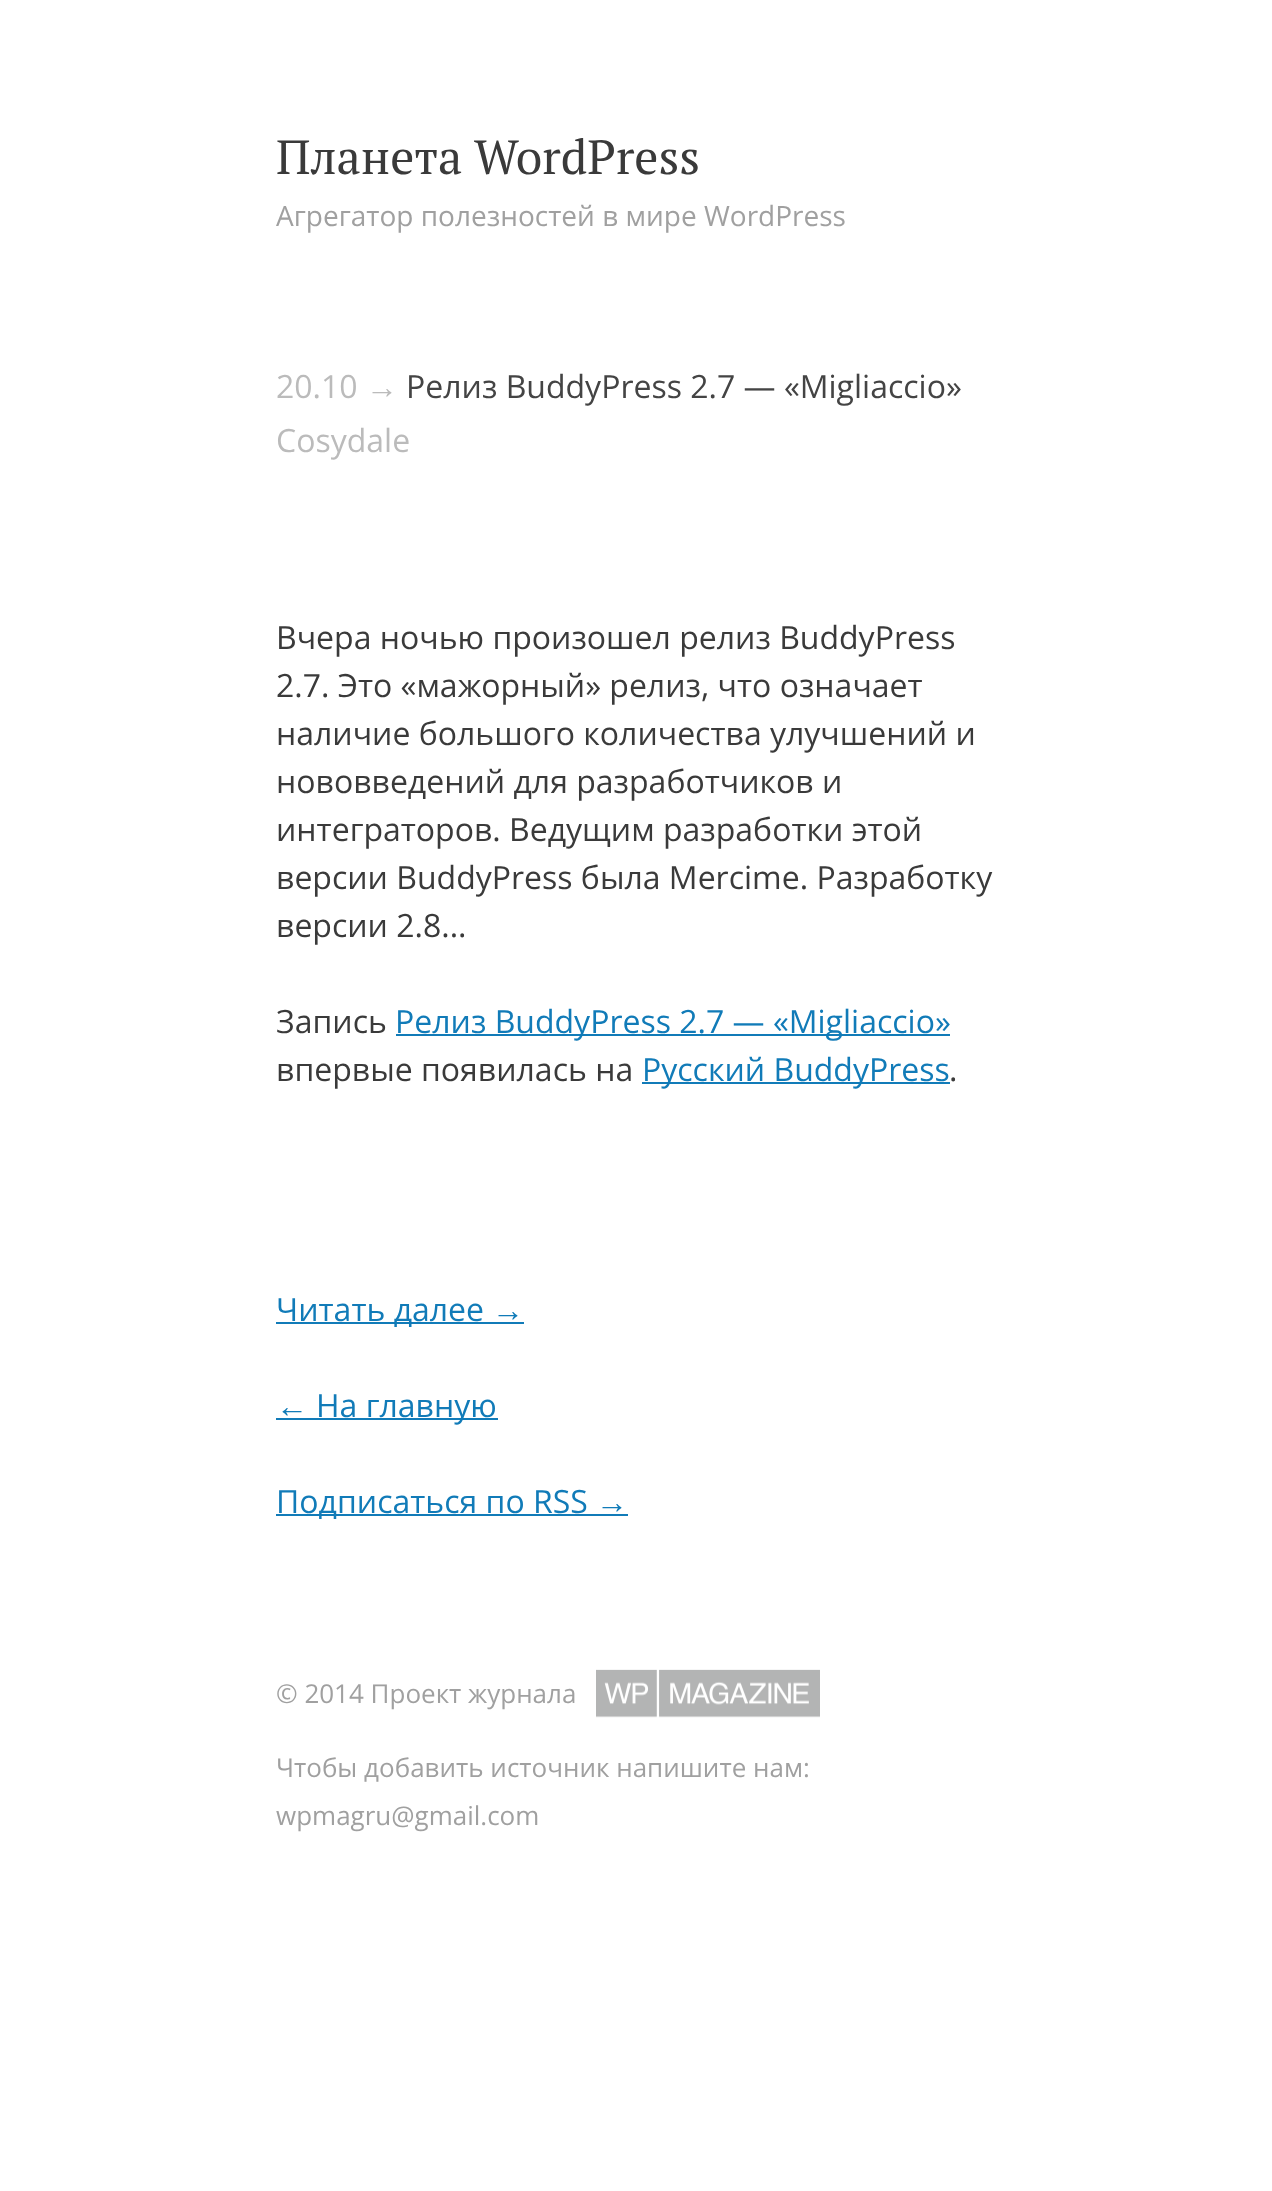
<svg xmlns="http://www.w3.org/2000/svg" width="1272" height="2191">
	<rect width="100%" height="100%" fill="#FFFFFF" />
	<text x="276" y="174" font-family="PT Serif" font-size="48" fill="#3A3A3A">Планета WordPress</text>
	<text x="276" y="226" font-family="Open Sans" font-size="28" fill="#A0A0A0">Агрегатор полезностей в мире WordPress</text>
	<text x="276" y="398" font-family="Open Sans" font-size="32" fill="#BBBBBB">20.10</text>
	<text x="366" y="398" font-family="Liberation Sans" font-size="32" fill="#BBBBBB">→</text>
	<text x="406" y="398" font-family="Open Sans" font-size="32" fill="#444444">Релиз BuddyPress 2.7 — «Migliaccio»</text>
	<text x="276" y="452" font-family="Open Sans" font-size="32" fill="#BBBBBB">Cosydale</text>
	<g font-family="Open Sans" font-size="32" fill="#3A3A3A">
		<text x="276" y="649">Вчера ночью произошел релиз BuddyPress</text>
		<text x="276" y="697">2.7. Это «мажорный» релиз, что означает</text>
		<text x="276" y="745">наличие большого количества улучшений и</text>
		<text x="276" y="793">нововведений для разработчиков и</text>
		<text x="276" y="841">интеграторов. Ведущим разработки этой</text>
		<text x="276" y="889">версии BuddyPress была Mercime. Разработку</text>
		<text x="276" y="937">версии 2.8...</text>
		<text x="276" y="1033">Запись</text>
	</g>
	<rect x="396" y="1034" width="554" height="2" fill="#117BB8" />
	<text x="395" y="1033" font-family="Open Sans" font-size="32" fill="#117BB8">Релиз BuddyPress 2.7 — «Migliaccio»</text>
	<text x="276" y="1081" font-family="Open Sans" font-size="32" fill="#3A3A3A">впервые появилась на</text>
	<rect x="642" y="1082" width="308" height="2" fill="#117BB8" />
	<text x="642" y="1081" font-family="Open Sans" font-size="32" fill="#117BB8">Русский BuddyPress</text>
	<text x="949" y="1081" font-family="Open Sans" font-size="32" fill="#3A3A3A">.</text>
	<rect x="276" y="1322" width="248" height="2" fill="#117BB8" />
	<text x="276" y="1321" font-family="Open Sans" font-size="32" fill="#117BB8">Читать далее</text>
	<g font-family="Liberation Sans" font-size="32" fill="#117BB8">
		<text x="492" y="1321">→</text>
		<text x="276" y="1417">←</text>
	</g>
	<rect x="276" y="1418" width="222" height="2" fill="#117BB8" />
	<text x="316" y="1417" font-family="Open Sans" font-size="32" fill="#117BB8">На главную</text>
	<rect x="276" y="1514" width="352" height="2" fill="#117BB8" />
	<text x="276" y="1513" font-family="Open Sans" font-size="32" fill="#117BB8">Подписаться по RSS</text>
	<text x="596" y="1513" font-family="Liberation Sans" font-size="32" fill="#117BB8">→</text>
	<text x="276" y="1703" font-family="Open Sans" font-size="26" fill="#A0A0A0">© 2014 Проект журнала</text>
	<image x="596" y="1669" width="224" height="49" href="assets/img1.png" />
	<g font-family="Open Sans" font-size="26" fill="#A0A0A0">
		<text x="276" y="1777">Чтобы добавить источник напишите нам:</text>
		<text x="276" y="1825">wpmagru@gmail.com</text>
	</g>
</svg>
